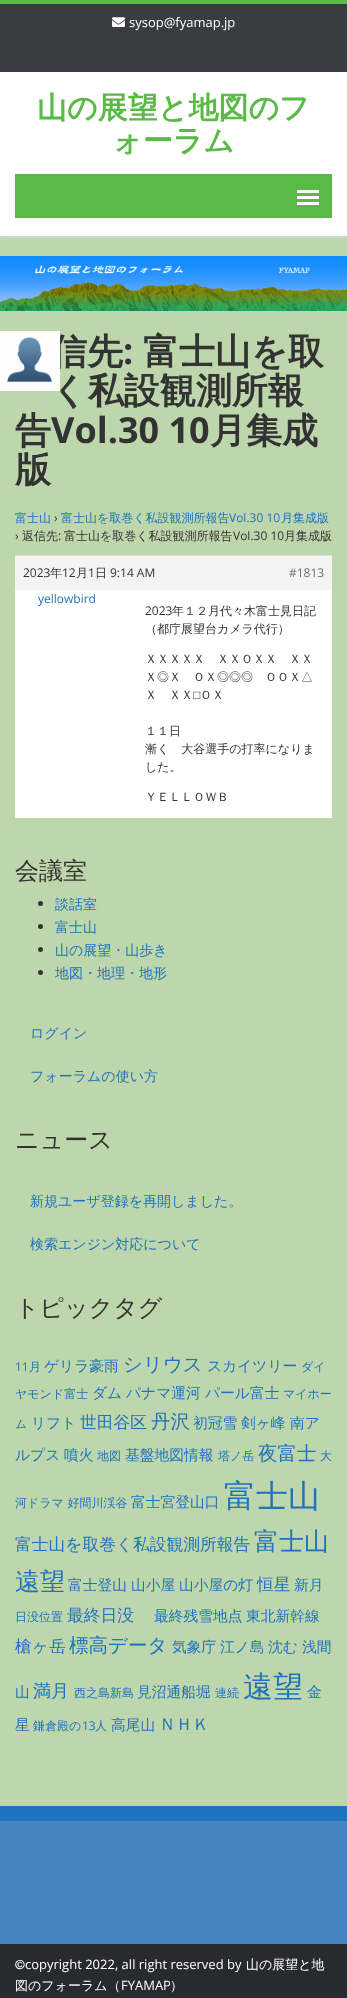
<svg xmlns="http://www.w3.org/2000/svg" width="347" height="1998">
	<rect width="100%" height="100%" fill="#BDD6AB" />
	<rect x="1" y="1" width="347" height="236" fill="#DDDDDD" filter="blur(2px)" />
	<rect x="0" y="4" width="347" height="68" fill="#3A3C41" />
	<rect x="0" y="0" width="347" height="4" fill="#59BA47" />
	<image x="112" y="17" width="13" height="10" href="assets/img1.png" />
	<text x="129" y="27" font-family="Open Sans" font-size="13" fill="#FFFFFF">sysop@fyamap.jp</text>
	<rect x="0" y="72" width="347" height="164" fill="#FFFFFF" />
	<g font-family="WenQuanYi Zen Hei" font-size="30" font-weight="700" fill="#59BA47">
		<text x="37" y="118">山の展望と地図のフ</text>
		<text x="112" y="151">ォーラム</text>
	</g>
	<rect x="15" y="174" width="317" height="44" fill="#59BA47" />
	<rect x="297" y="190" width="22" height="3" fill="#FFFFFF" />
	<rect x="297" y="196" width="22" height="3" fill="#FFFFFF" />
	<rect x="297" y="202" width="22" height="3" fill="#FFFFFF" />
	<image x="0" y="256" width="347" height="55" href="assets/img2.png" />
	<text x="51" y="364" font-family="WenQuanYi Zen Hei" font-size="36" font-weight="700" fill="#333333">信先</text>
	<text x="123" y="364" font-family="Open Sans" font-size="36" font-weight="700" fill="#333333">:</text>
	<g font-family="WenQuanYi Zen Hei" font-size="36" font-weight="700" fill="#333333">
		<text x="143" y="364">富士山を取</text>
		<text x="51" y="403">く私設観測所報</text>
		<text x="15" y="443">告</text>
	</g>
	<text x="51" y="443" font-family="Open Sans" font-size="36" font-weight="700" fill="#333333">Vol.30 10</text>
	<g font-family="WenQuanYi Zen Hei" font-size="36" font-weight="700" fill="#333333">
		<text x="210" y="443">月集成</text>
		<text x="15" y="482">版</text>
	</g>
	<text x="15" y="522" font-family="WenQuanYi Zen Hei" font-size="12" font-weight="500" fill="#1E73BE">富士山</text>
	<text x="54" y="522" font-family="Open Sans" font-size="12" fill="#333333">›</text>
	<text x="61" y="522" font-family="WenQuanYi Zen Hei" font-size="12" font-weight="500" fill="#1E73BE">富士山を取巻く私設観測所報告</text>
	<text x="229" y="522" font-family="Open Sans" font-size="12" fill="#1E73BE">Vol.30 10</text>
	<text x="281" y="522" font-family="WenQuanYi Zen Hei" font-size="12" font-weight="500" fill="#1E73BE">月集成版</text>
	<text x="15" y="540" font-family="Open Sans" font-size="12" fill="#333333">›</text>
	<text x="22" y="540" font-family="WenQuanYi Zen Hei" font-size="12" font-weight="500" fill="#333333">返信先</text>
	<text x="58" y="540" font-family="Open Sans" font-size="12" fill="#333333">:</text>
	<text x="64" y="540" font-family="WenQuanYi Zen Hei" font-size="12" font-weight="500" fill="#333333">富士山を取巻く私設観測所報告</text>
	<text x="233" y="540" font-family="Open Sans" font-size="12" fill="#333333">Vol.30 10</text>
	<text x="284" y="540" font-family="WenQuanYi Zen Hei" font-size="12" font-weight="500" fill="#333333">月集成版</text>
	<rect x="15" y="556" width="317" height="34" fill="#F4F4F4" />
	<rect x="15" y="555" width="317" height="1" fill="#DDDDDD" />
	<text x="23" y="577" font-family="Open Sans" font-size="12" fill="#333333">2023</text>
	<text x="50" y="577" font-family="WenQuanYi Zen Hei" font-size="12" font-weight="500" fill="#333333">年</text>
	<text x="62" y="577" font-family="Open Sans" font-size="12" fill="#333333">12</text>
	<text x="76" y="577" font-family="WenQuanYi Zen Hei" font-size="12" font-weight="500" fill="#333333">月</text>
	<text x="88" y="577" font-family="Open Sans" font-size="12" fill="#333333">1</text>
	<text x="95" y="577" font-family="WenQuanYi Zen Hei" font-size="12" font-weight="500" fill="#333333">日</text>
	<text x="110" y="577" font-family="Open Sans" font-size="12" fill="#333333">9:14 AM</text>
	<text x="289" y="577" font-family="Open Sans" font-size="12" fill="#707070">#1813</text>
	<rect x="15" y="590" width="317" height="228" fill="#FFFFFF" />
	<image x="0" y="331" width="60" height="60" href="assets/img3.png" />
	<text x="38" y="603" font-family="Open Sans" font-size="12" fill="#1E73BE">yellowbird</text>
	<text x="145" y="615" font-family="Open Sans" font-size="12" fill="#333333">2023</text>
	<g font-family="WenQuanYi Zen Hei" font-size="12" font-weight="500" fill="#333333">
		<text x="172" y="615">年１２月代々木富士見日記</text>
		<text x="145" y="633">（都庁展望台カメラ代行）</text>
		<text x="145" y="663">ＸＸＸＸＸ　ＸＸＯＸＸ　ＸＸ</text>
		<text x="145" y="681">Ｘ◎Ｘ　ＯＸ◎◎◎　ＯＯＸ△</text>
		<text x="145" y="699">Ｘ　ＸＸ</text>
	</g>
	<text x="193" y="699" font-family="Liberation Sans" font-size="12" fill="#333333">□</text>
	<g font-family="WenQuanYi Zen Hei" font-size="12" font-weight="500" fill="#333333">
		<text x="200" y="699">ＯＸ</text>
		<text x="145" y="735">１１日</text>
		<text x="145" y="753">漸く　大谷選手の打率になりま</text>
		<text x="145" y="771">した。</text>
		<text x="145" y="801">ＹＥＬＬＯＷＢ</text>
	</g>
	<text x="15" y="879" font-family="WenQuanYi Zen Hei" font-size="24" font-weight="500" fill="#333333">会議室</text>
	<circle cx="40.5" cy="903.5" r="2.5" fill="#333333" />
	<text x="55" y="909" font-family="WenQuanYi Zen Hei" font-size="14" font-weight="500" fill="#1E73BE">談話室</text>
	<circle cx="40.5" cy="926.5" r="2.5" fill="#333333" />
	<text x="55" y="932" font-family="WenQuanYi Zen Hei" font-size="14" font-weight="500" fill="#1E73BE">富士山</text>
	<circle cx="40.5" cy="949.5" r="2.5" fill="#333333" />
	<text x="55" y="955" font-family="WenQuanYi Zen Hei" font-size="14" font-weight="500" fill="#1E73BE">山の展望・山歩き</text>
	<circle cx="40.5" cy="972.5" r="2.5" fill="#333333" />
	<g font-family="WenQuanYi Zen Hei" font-size="14" font-weight="500" fill="#1E73BE">
		<text x="55" y="978">地図・地理・地形</text>
		<text x="30" y="1038">ログイン</text>
		<text x="30" y="1081">フォーラムの使い方</text>
	</g>
	<text x="15" y="1148" font-family="WenQuanYi Zen Hei" font-size="24" font-weight="500" fill="#333333">ニュース</text>
	<g font-family="WenQuanYi Zen Hei" font-size="14" font-weight="500" fill="#1E73BE">
		<text x="30" y="1206">新規ユーザ登録を再開しました。</text>
		<text x="30" y="1249">検索エンジン対応について</text>
	</g>
	<text x="15" y="1316" font-family="WenQuanYi Zen Hei" font-size="24" font-weight="500" fill="#333333">トピックタグ</text>
	<text x="15" y="1371" font-family="Open Sans" font-size="12" fill="#1E73BE">11</text>
	<text x="29" y="1371" font-family="WenQuanYi Zen Hei" font-size="12" font-weight="500" fill="#1E73BE">月</text>
	<text x="44" y="1371" font-family="WenQuanYi Zen Hei" font-size="14.75" font-weight="500" fill="#1E73BE">ゲリラ豪雨</text>
	<text x="123" y="1371" font-family="WenQuanYi Zen Hei" font-size="19.5" font-weight="500" fill="#1E73BE">シリウス</text>
	<text x="207" y="1371" font-family="WenQuanYi Zen Hei" font-size="14.75" font-weight="500" fill="#1E73BE">スカイツリー</text>
	<g font-family="WenQuanYi Zen Hei" font-size="12" font-weight="500" fill="#1E73BE">
		<text x="301" y="1371">ダイ</text>
		<text x="15" y="1398">ヤモンド富士</text>
	</g>
	<g font-family="WenQuanYi Zen Hei" font-size="14.75" font-weight="500" fill="#1E73BE">
		<text x="92" y="1398">ダム</text>
		<text x="126" y="1398">パナマ運河</text>
		<text x="205" y="1398">パール富士</text>
	</g>
	<g font-family="WenQuanYi Zen Hei" font-size="12" font-weight="500" fill="#1E73BE">
		<text x="283" y="1398">マイホー</text>
		<text x="15" y="1428">ム</text>
	</g>
	<text x="31" y="1428" font-family="WenQuanYi Zen Hei" font-size="14.75" font-weight="500" fill="#1E73BE">リフト</text>
	<text x="80" y="1428" font-family="WenQuanYi Zen Hei" font-size="16.75" font-weight="500" fill="#1E73BE">世田谷区</text>
	<text x="151" y="1428" font-family="WenQuanYi Zen Hei" font-size="19.5" font-weight="500" fill="#1E73BE">丹沢</text>
	<g font-family="WenQuanYi Zen Hei" font-size="14.75" font-weight="500" fill="#1E73BE">
		<text x="193" y="1428">初冠雪</text>
		<text x="241" y="1428">剣ヶ峰</text>
		<text x="290" y="1428">南ア</text>
		<text x="15" y="1460">ルプス</text>
		<text x="64" y="1460">噴火</text>
	</g>
	<text x="97" y="1460" font-family="WenQuanYi Zen Hei" font-size="12" font-weight="500" fill="#1E73BE">地図</text>
	<text x="125" y="1460" font-family="WenQuanYi Zen Hei" font-size="14.75" font-weight="500" fill="#1E73BE">基盤地図情報</text>
	<text x="218" y="1460" font-family="WenQuanYi Zen Hei" font-size="12" font-weight="500" fill="#1E73BE">塔ノ岳</text>
	<text x="258" y="1460" font-family="WenQuanYi Zen Hei" font-size="19.5" font-weight="500" fill="#1E73BE">夜富士</text>
	<g font-family="WenQuanYi Zen Hei" font-size="12" font-weight="500" fill="#1E73BE">
		<text x="320" y="1460">大</text>
		<text x="15" y="1507">河ドラマ 好間川渓谷</text>
	</g>
	<text x="131" y="1507" font-family="WenQuanYi Zen Hei" font-size="14.75" font-weight="500" fill="#1E73BE">富士宮登山口</text>
	<text x="224" y="1507" font-family="WenQuanYi Zen Hei" font-size="32" font-weight="500" fill="#1E73BE">富士山</text>
	<text x="15" y="1550" font-family="WenQuanYi Zen Hei" font-size="16.75" font-weight="500" fill="#1E73BE">富士山を取巻く私設観測所報告</text>
	<g font-family="WenQuanYi Zen Hei" font-size="25" font-weight="500" fill="#1E73BE">
		<text x="254" y="1550">富士山</text>
		<text x="15" y="1590">遠望</text>
	</g>
	<g font-family="WenQuanYi Zen Hei" font-size="14.75" font-weight="500" fill="#1E73BE">
		<text x="68" y="1590">富士登山</text>
		<text x="131" y="1590">山小屋</text>
		<text x="179" y="1590">山小屋の灯</text>
	</g>
	<text x="257" y="1590" font-family="WenQuanYi Zen Hei" font-size="16.75" font-weight="500" fill="#1E73BE">恒星</text>
	<text x="294" y="1590" font-family="WenQuanYi Zen Hei" font-size="14.75" font-weight="500" fill="#1E73BE">新月</text>
	<text x="15" y="1621" font-family="WenQuanYi Zen Hei" font-size="12" font-weight="500" fill="#1E73BE">日没位置</text>
	<text x="67" y="1621" font-family="WenQuanYi Zen Hei" font-size="16.75" font-weight="500" fill="#1E73BE">最終日没</text>
	<g font-family="WenQuanYi Zen Hei" font-size="14.75" font-weight="500" fill="#1E73BE">
		<text x="154" y="1621">最終残雪地点</text>
		<text x="246" y="1621">東北新幹線</text>
	</g>
	<text x="15" y="1652" font-family="WenQuanYi Zen Hei" font-size="16.75" font-weight="500" fill="#1E73BE">槍ヶ岳</text>
	<text x="69" y="1652" font-family="WenQuanYi Zen Hei" font-size="19.5" font-weight="500" fill="#1E73BE">標高データ</text>
	<g font-family="WenQuanYi Zen Hei" font-size="14.75" font-weight="500" fill="#1E73BE">
		<text x="172" y="1652">気象庁</text>
		<text x="220" y="1652">江ノ島</text>
		<text x="268" y="1652">沈む</text>
		<text x="302" y="1652">浅間</text>
		<text x="15" y="1697">山</text>
	</g>
	<text x="33" y="1697" font-family="WenQuanYi Zen Hei" font-size="18" font-weight="500" fill="#1E73BE">満月</text>
	<text x="74" y="1697" font-family="WenQuanYi Zen Hei" font-size="12" font-weight="500" fill="#1E73BE">西之島新島</text>
	<text x="137" y="1697" font-family="WenQuanYi Zen Hei" font-size="14.75" font-weight="500" fill="#1E73BE">見沼通船堀</text>
	<text x="215" y="1697" font-family="WenQuanYi Zen Hei" font-size="12" font-weight="500" fill="#1E73BE">連続</text>
	<text x="243" y="1697" font-family="WenQuanYi Zen Hei" font-size="30" font-weight="500" fill="#1E73BE">遠望</text>
	<g font-family="WenQuanYi Zen Hei" font-size="14.75" font-weight="500" fill="#1E73BE">
		<text x="307" y="1697">金</text>
		<text x="15" y="1730">星</text>
	</g>
	<text x="33" y="1730" font-family="WenQuanYi Zen Hei" font-size="12" font-weight="500" fill="#1E73BE">鎌倉殿の</text>
	<text x="82" y="1730" font-family="Open Sans" font-size="12" fill="#1E73BE">13</text>
	<text x="95" y="1730" font-family="WenQuanYi Zen Hei" font-size="12" font-weight="500" fill="#1E73BE">人</text>
	<text x="111" y="1730" font-family="WenQuanYi Zen Hei" font-size="14.75" font-weight="500" fill="#1E73BE">高尾山</text>
	<text x="159" y="1730" font-family="WenQuanYi Zen Hei" font-size="16.75" font-weight="500" fill="#1E73BE">ＮＨＫ</text>
	<rect x="0" y="1821" width="347" height="123" fill="#4285BF" />
	<rect x="0" y="1806" width="347" height="15" fill="#1E73BE" />
	<rect x="0" y="1944" width="347" height="54" fill="#292A2F" />
	<text x="15" y="1969" font-family="WenQuanYi Zen Hei" font-size="13" font-weight="500" fill="#FFFFFF">©</text>
	<text x="25" y="1969" font-family="Open Sans" font-size="13" fill="#FFFFFF">copyright 2022, all right reserved by</text>
	<g font-family="WenQuanYi Zen Hei" font-size="13" font-weight="500" fill="#FFFFFF">
		<text x="246" y="1969">山の展望と地</text>
		<text x="15" y="1990">図のフォーラム（</text>
	</g>
	<text x="121" y="1990" font-family="Open Sans" font-size="13" fill="#FFFFFF">FYAMAP</text>
	<text x="170" y="1990" font-family="WenQuanYi Zen Hei" font-size="13" font-weight="500" fill="#FFFFFF">）</text>
</svg>
